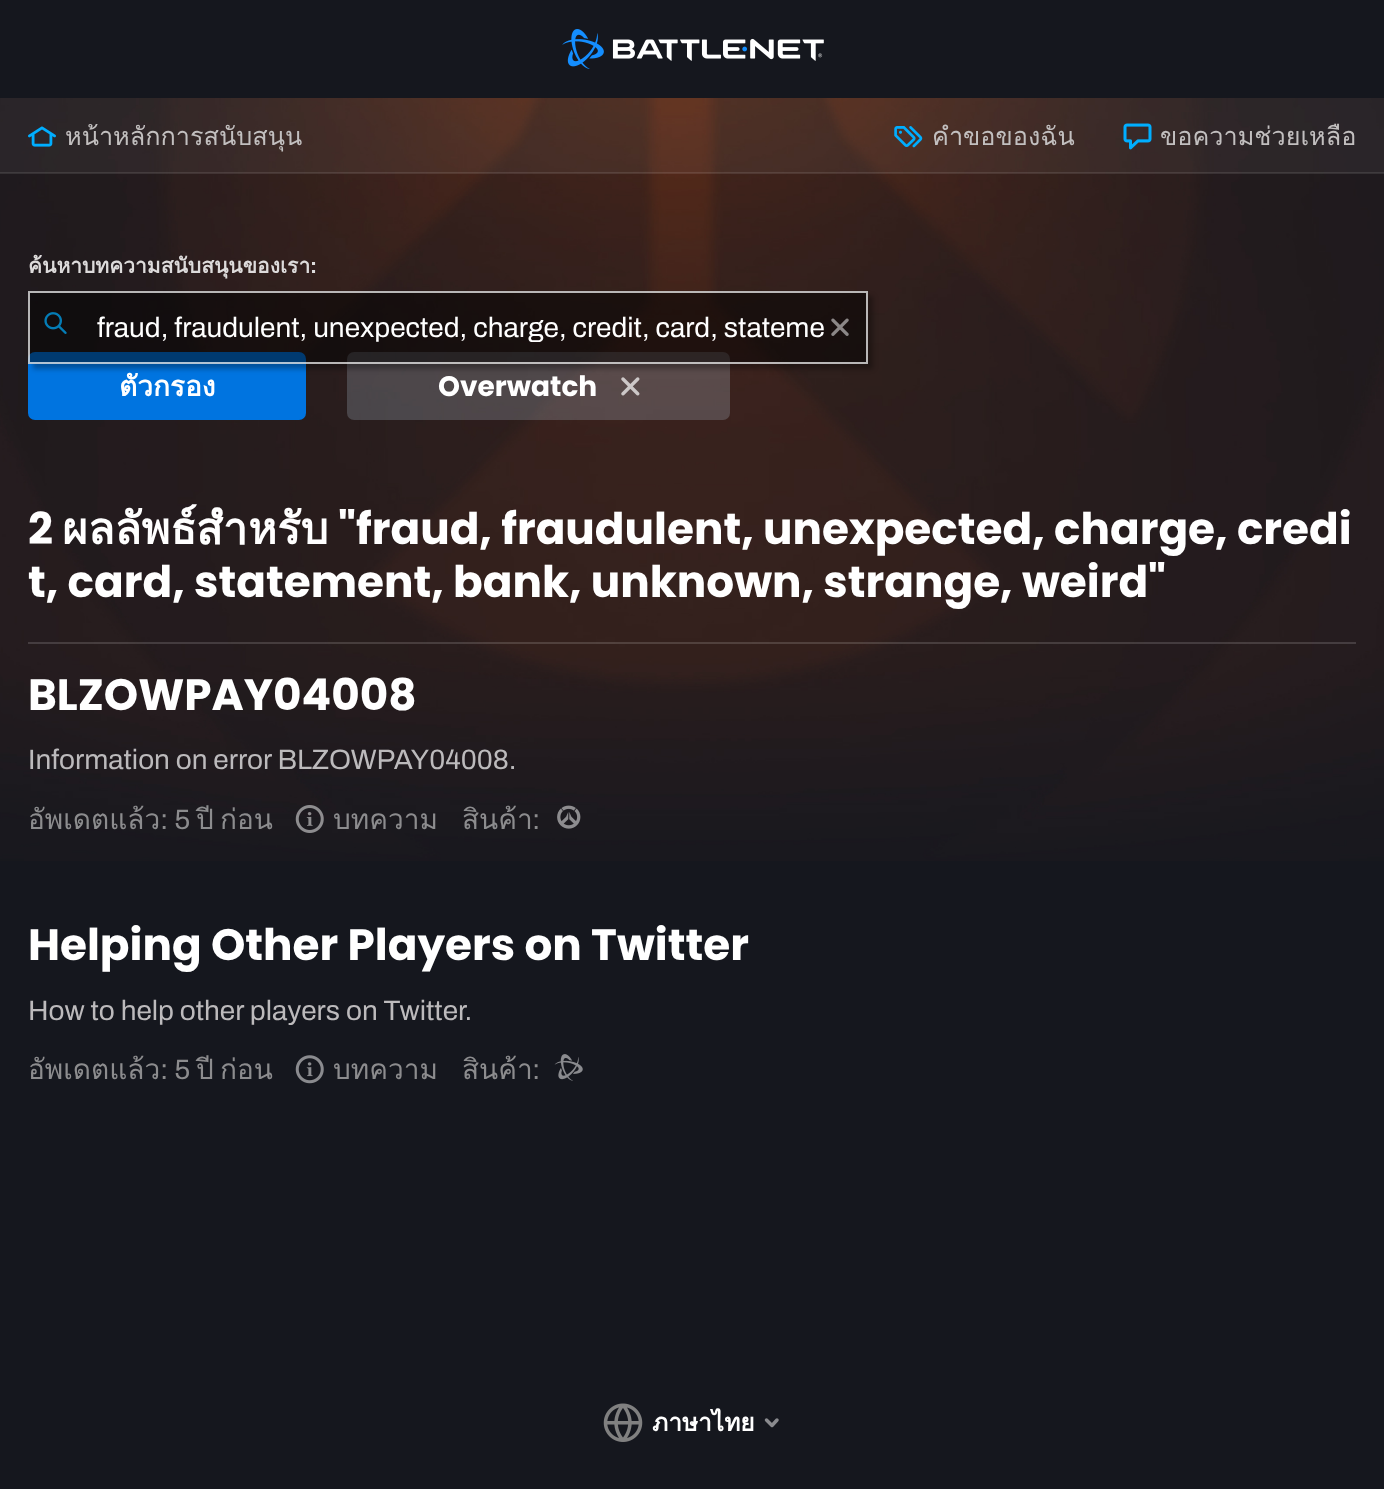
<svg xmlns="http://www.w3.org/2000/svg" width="1384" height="1489">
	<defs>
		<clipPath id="clip1"><path d="M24 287H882V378H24ZM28 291H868V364H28Z" clip-rule="evenodd" /></clipPath>
	</defs>
	<rect width="100%" height="100%" fill="#15171E" />
	<image x="562" y="29" width="262" height="40" href="assets/img1.png" />
	<image x="0" y="98" width="1384" height="763" href="assets/img5.png" />
	<rect x="0" y="98" width="1384" height="75" fill="#FFFFFF" fill-opacity="0.05" />
	<rect x="0" y="172" width="1384" height="2" fill="#FFFFFF" fill-opacity="0.1" />
	<image x="28" y="126" width="28" height="21" href="assets/img2.png" />
	<text x="65" y="145" font-family="Loma" font-size="25.25" fill="#C2BFBF">หน้าหลักการสนับสนุน</text>
	<image x="894" y="126" width="29" height="22" href="assets/img3.png" />
	<text x="932" y="145" font-family="Loma" font-size="25.25" fill="#C2BFBF">คำขอของฉัน</text>
	<image x="1123" y="123" width="29" height="27" href="assets/img4.png" />
	<text x="1160" y="145" font-family="Loma" font-size="25.25" fill="#C2BFBF">ขอความช่วยเหลือ</text>
	<text x="28" y="273" font-family="Loma" font-size="21" font-weight="700" fill="#DDDBDB">ค้นหาบทความสนับสนุนของเรา</text>
	<text x="310" y="273" font-family="Archivo" font-size="21" font-weight="700" fill="#DDDBDB">:</text>
	<rect x="28" y="352" width="278" height="68" rx="7" fill="#0074E0" />
	<rect x="347" y="352" width="383" height="68" rx="7" fill="#D0E9FF" fill-opacity="0.2" />
	<rect x="28" y="291" width="840" height="73" fill="#000000" fill-opacity="0.5" />
	<image x="621" y="377" width="19" height="19" href="assets/img8.png" />
	<g clip-path="url(#clip1)">
		<rect x="33" y="296" width="840" height="73" fill="#000000" fill-opacity="0.3" filter="blur(2.5px)" />
	</g>
	<rect x="29" y="292" width="838" height="71" fill="none" stroke="#FFFFFF" stroke-opacity="0.7" stroke-width="2" />
	<image x="44" y="312" width="23" height="22" href="assets/img6.png" />
	<text x="97" y="337" font-family="Archivo" font-size="28" fill="#FFFFFF">fraud, fraudulent, unexpected, charge, credit, card, stateme</text>
	<image x="831" y="318" width="18" height="18" href="assets/img7.png" />
	<text x="119" y="396" font-family="Loma" font-size="28" font-weight="700" fill="#FFFFFF">ตัวกรอง</text>
	<text x="438" y="396" font-family="Poppins" font-size="28" font-weight="700" fill="#FFFFFF">Overwatch</text>
	<text x="28" y="544" font-family="Poppins" font-size="43.75" font-weight="700" fill="#FFFFFF">2</text>
	<text x="62" y="544" font-family="Loma" font-size="43.75" font-weight="700" fill="#FFFFFF">ผลลัพธ์สำหรับ</text>
	<g font-family="Poppins" font-size="43.75" font-weight="700" fill="#FFFFFF">
		<text x="338" y="544">"fraud, fraudulent, unexpected, charge, credi</text>
		<text x="28" y="597">t, card, statement, bank, unknown, strange, weird"</text>
	</g>
	<rect x="28" y="642" width="1328" height="2" fill="#FFFFFF" fill-opacity="0.15" />
	<text x="28" y="710" font-family="Poppins" font-size="43.75" font-weight="700" fill="#FFFFFF">BLZOWPAY04008</text>
	<text x="28" y="769" font-family="Archivo" font-size="28" fill="#BCBABC">Information on error BLZOWPAY04008.</text>
	<text x="28" y="829" font-family="Loma" font-size="28" fill="#8C8C8E">อัพเดตแล้ว</text>
	<text x="160" y="829" font-family="Archivo" font-size="28" fill="#8C8C8E">: 5</text>
	<g font-family="Loma" font-size="28" fill="#8C8C8E">
		<text x="196" y="829">ปี</text>
		<text x="220" y="829">ก่อน</text>
	</g>
	<image x="295" y="805" width="29" height="28" href="assets/img9.png" />
	<g font-family="Loma" font-size="28" fill="#8C8C8E">
		<text x="333" y="829">บทความ</text>
		<text x="462" y="829">สินค้า</text>
	</g>
	<text x="532" y="829" font-family="Archivo" font-size="28" fill="#8C8C8E">:</text>
	<image x="557" y="805" width="24" height="24" href="assets/img10.png" />
	<text x="28" y="960" font-family="Poppins" font-size="43.75" font-weight="700" fill="#FFFFFF">Helping Other Players on Twitter</text>
	<text x="28" y="1020" font-family="Archivo" font-size="28" fill="#BCBABC">How to help other players on Twitter.</text>
	<text x="28" y="1079" font-family="Loma" font-size="28" fill="#8C8C8E">อัพเดตแล้ว</text>
	<text x="160" y="1079" font-family="Archivo" font-size="28" fill="#8C8C8E">: 5</text>
	<g font-family="Loma" font-size="28" fill="#8C8C8E">
		<text x="196" y="1079">ปี</text>
		<text x="220" y="1079">ก่อน</text>
	</g>
	<image x="295" y="1055" width="29" height="29" href="assets/img11.png" />
	<g font-family="Loma" font-size="28" fill="#8C8C8E">
		<text x="333" y="1079">บทความ</text>
		<text x="462" y="1079">สินค้า</text>
	</g>
	<text x="532" y="1079" font-family="Archivo" font-size="28" fill="#8C8C8E">:</text>
	<image x="554" y="1054" width="29" height="27" href="assets/img12.png" />
	<image x="603" y="1403" width="40" height="39" href="assets/img13.png" />
	<text x="652" y="1431" font-family="Loma" font-size="24.5" font-weight="700" fill="#FFFFFF">ภาษาไทย</text>
	<path d="M766.5 1420L772 1425.5L777 1420" fill="none" stroke="#8A8B8F" stroke-width="3.5" stroke-linecap="round" stroke-linejoin="round" />
</svg>
